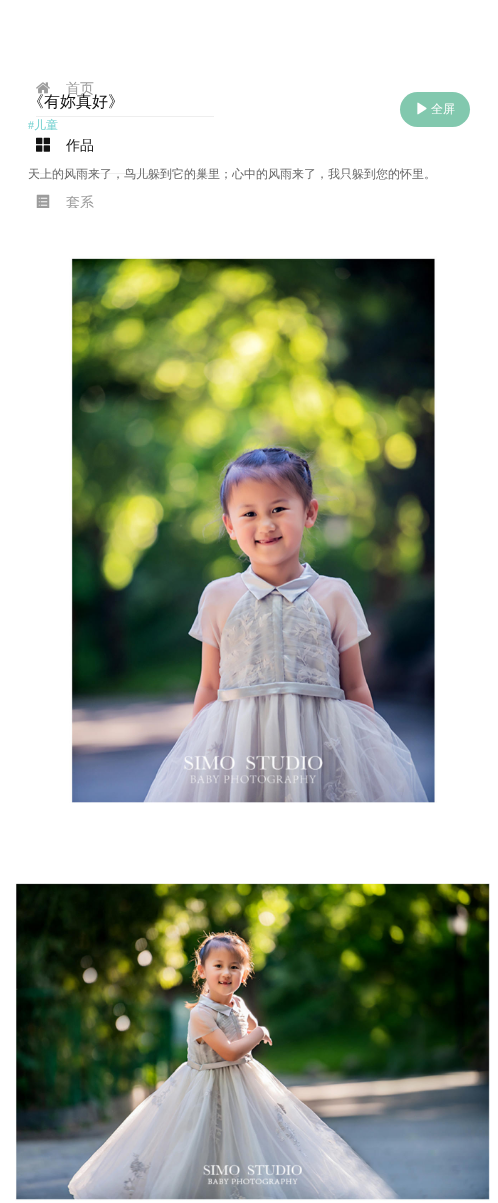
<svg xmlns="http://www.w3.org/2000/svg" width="498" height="1203">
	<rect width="100%" height="100%" fill="#FFFFFF" />
	<rect x="36" y="116" width="178" height="1" fill="#EEEEEE" />
	<image x="36" y="82" width="14" height="12" href="assets/img1.png" />
	<text x="66" y="93" font-family="WenQuanYi Zen Hei" font-size="14" font-weight="500" fill="#9C9C9C">首页</text>
	<rect x="36" y="173" width="178" height="1" fill="#EEEEEE" />
	<image x="36" y="137" width="14" height="15" href="assets/img2.png" />
	<text x="66" y="150" font-family="WenQuanYi Zen Hei" font-size="14" font-weight="500" fill="#111111">作品</text>
	<image x="36" y="194" width="14" height="14" href="assets/img3.png" />
	<text x="66" y="207" font-family="WenQuanYi Zen Hei" font-size="14" font-weight="500" fill="#9C9C9C">套系</text>
	<text x="28" y="107" font-family="WenQuanYi Zen Hei" font-size="16" font-weight="500" fill="#111111">《有妳真好》</text>
	<rect x="400" y="92" width="70" height="35" rx="17.5" fill="#82C8AE" />
	<image x="417" y="102" width="10" height="13" href="assets/img4.png" />
	<text x="431" y="113" font-family="WenQuanYi Zen Hei" font-size="12" font-weight="500" fill="#FFFFFF">全屏</text>
	<text x="28" y="129" font-family="Liberation Serif" font-size="12" fill="#70D0CF">#</text>
	<text x="34" y="129" font-family="WenQuanYi Zen Hei" font-size="12" font-weight="500" fill="#70D0CF">儿童</text>
	<text x="28" y="178" font-family="WenQuanYi Zen Hei" font-size="12" font-weight="500" fill="#666666">天上的风雨来了，鸟儿躲到它的巢里；心中的风雨来了，我只躲到您的怀里。</text>
	<image x="36" y="208" width="401" height="595" href="assets/img5.png" />
	<image x="15" y="883" width="475" height="318" href="assets/img6.png" />
</svg>
